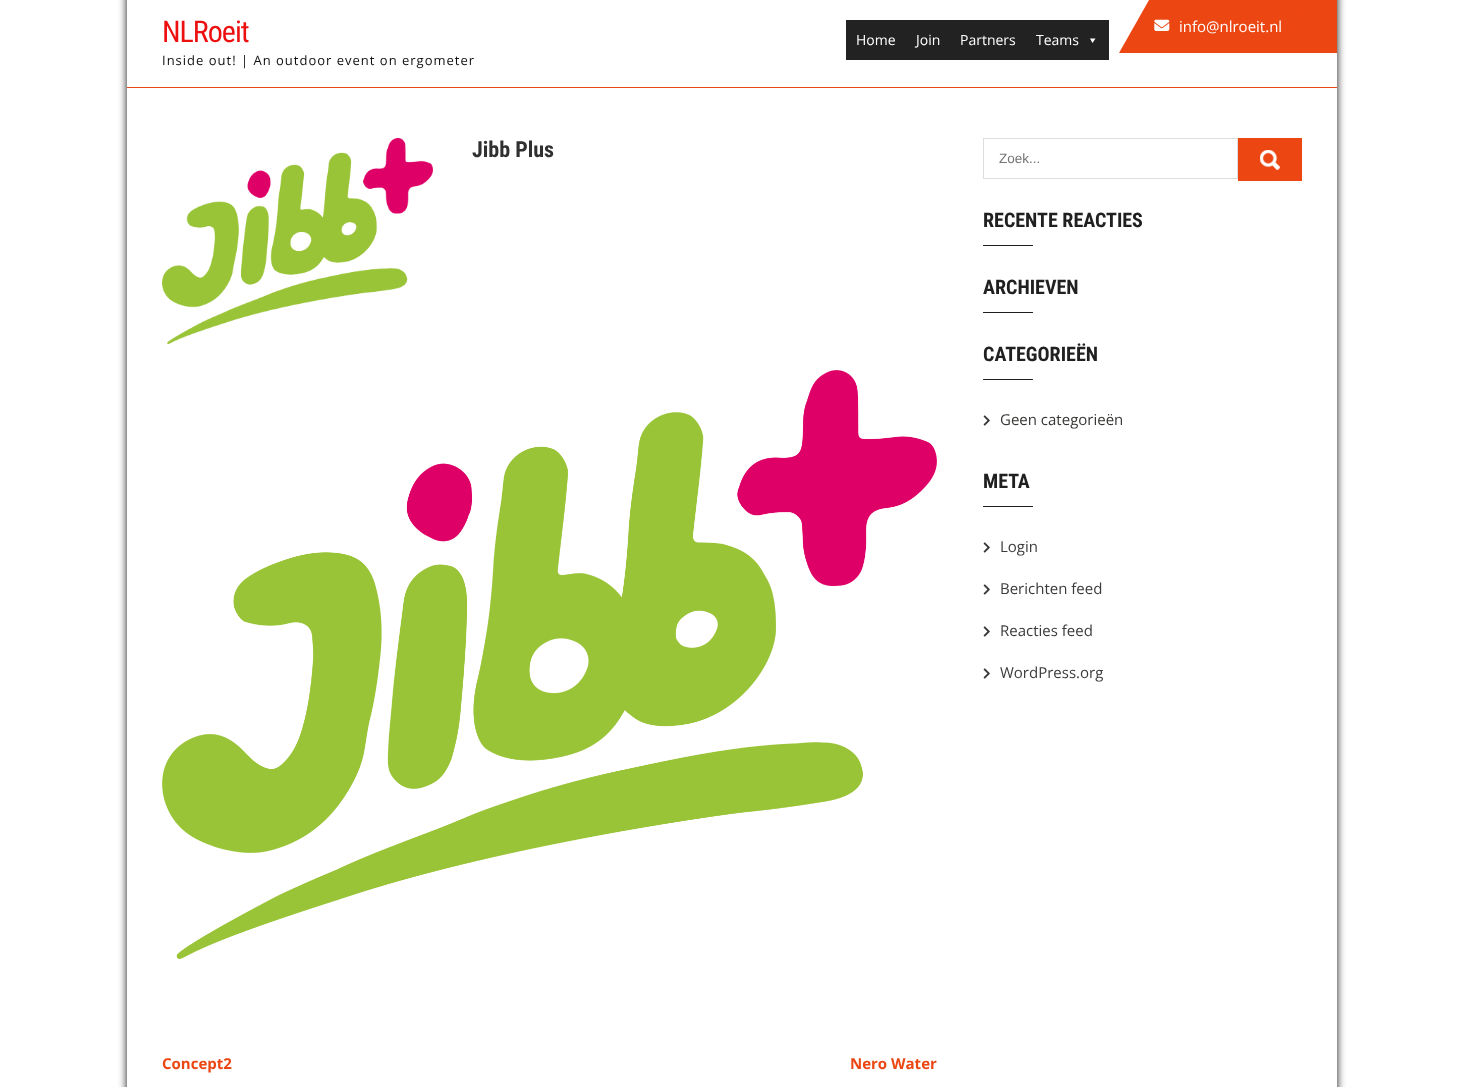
<svg xmlns="http://www.w3.org/2000/svg" width="1464" height="1087">
	<defs>
		<clipPath id="clip1"><path d="M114 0H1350V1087H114ZM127 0H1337V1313H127Z" clip-rule="evenodd" /></clipPath>
		<clipPath id="clip2"><rect x="127" y="0" width="1210" height="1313" /></clipPath>
	</defs>
	<rect width="100%" height="100%" fill="#FFFFFF" />
	<g clip-path="url(#clip1)">
		<rect x="127" y="-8" width="1210" height="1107" fill="#111111" filter="blur(4px)" />
	</g>
	<rect x="127" y="87" width="1210" height="1" fill="#EC4613" />
	<text x="162" y="42" font-family="Roboto Condensed" font-size="30" letter-spacing="-1" fill="#ED1010">NLRoeit</text>
	<text x="162" y="65" font-family="Open Sans" font-size="13" letter-spacing="1" fill="#111111">Inside out! | An outdoor event on ergometer</text>
	<path d="M1149 0H1317L1287 53H1119Z" fill="#EC4613" />
	<image x="1154" y="19" width="16" height="12" href="assets/img1.png" />
	<text x="1179" y="32" font-family="Open Sans" font-size="15" fill="#FFFFFF">info@nlroeit.nl</text>
	<g clip-path="url(#clip2)">
		<path d="M1306 0H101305L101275 53H1276Z" fill="#EC4613" />
	</g>
	<rect x="846" y="20" width="263" height="40" fill="#222222" />
	<g font-family="Open Sans" font-size="14" fill="#FFFFFF">
		<text x="856" y="45">Home</text>
		<text x="916" y="45">Join</text>
		<text x="960" y="45">Partners</text>
		<text x="1036" y="45">Teams</text>
	</g>
	<path d="M1095.5 38.5L1092.5 43L1090 38.5Z" fill="#FFFFFF" />
	<image x="162" y="138" width="271" height="206" href="assets/img2.png" />
	<text x="472" y="157" font-family="Roboto Condensed" font-size="22" font-weight="700" fill="#303030">Jibb Plus</text>
	<image x="162" y="370" width="775" height="589" href="assets/img3.png" />
	<g font-family="Open Sans" font-size="15" font-weight="700" fill="#EC4613">
		<text x="162" y="1069">Concept2</text>
		<text x="850" y="1069">Nero Water</text>
	</g>
	<rect x="983.5" y="138.5" width="254" height="40" fill="none" stroke="#DDDDDD" />
	<text x="999" y="163" font-family="Liberation Sans" font-size="13.5" fill="#757575">Zoek...</text>
	<rect x="1238" y="138" width="64" height="43" fill="#EC4613" />
	<image x="1260" y="150" width="20" height="20" href="assets/img4.png" />
	<text x="983" y="227" font-family="Roboto Condensed" font-size="20" font-weight="700" fill="#202020">RECENTE REACTIES</text>
	<rect x="983" y="245" width="50" height="1" fill="#202020" />
	<text x="983" y="294" font-family="Roboto Condensed" font-size="20" font-weight="700" fill="#202020">ARCHIEVEN</text>
	<rect x="983" y="312" width="50" height="1" fill="#202020" />
	<text x="983" y="361" font-family="Roboto Condensed" font-size="20" font-weight="700" fill="#202020">CATEGORIEËN</text>
	<rect x="983" y="379" width="50" height="1" fill="#202020" />
	<image x="983" y="415" width="7" height="11" href="assets/img5.png" />
	<text x="1000" y="425" font-family="Open Sans" font-size="15" fill="#373735">Geen categorieën</text>
	<text x="983" y="488" font-family="Roboto Condensed" font-size="20" font-weight="700" fill="#202020">META</text>
	<rect x="983" y="506" width="50" height="1" fill="#202020" />
	<image x="983" y="542" width="7" height="11" href="assets/img5.png" />
	<text x="1000" y="552" font-family="Open Sans" font-size="15" fill="#3B3B3B">Login</text>
	<image x="983" y="584" width="7" height="11" href="assets/img5.png" />
	<text x="1000" y="594" font-family="Open Sans" font-size="15" fill="#3B3B3B">Berichten feed</text>
	<image x="983" y="626" width="7" height="11" href="assets/img5.png" />
	<text x="1000" y="636" font-family="Open Sans" font-size="15" fill="#3B3B3B">Reacties feed</text>
	<image x="983" y="668" width="7" height="11" href="assets/img5.png" />
	<text x="1000" y="678" font-family="Open Sans" font-size="15" fill="#3B3B3B">WordPress.org</text>
</svg>
